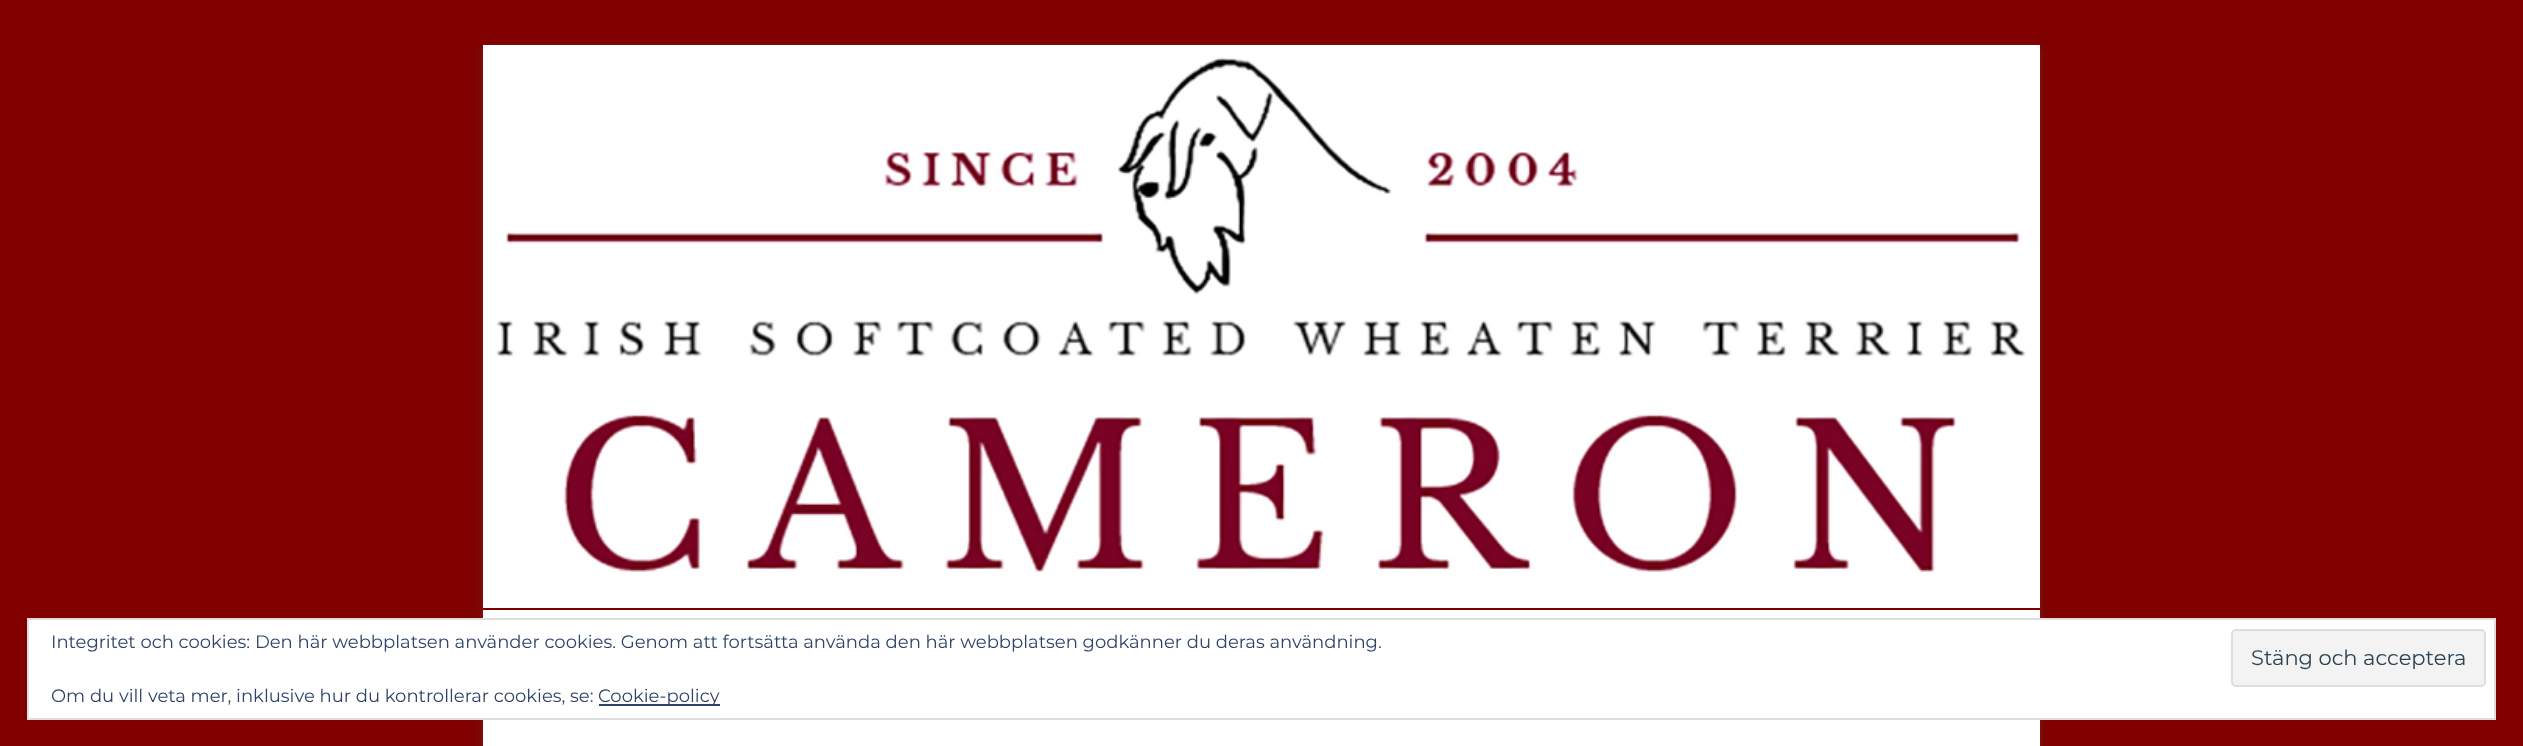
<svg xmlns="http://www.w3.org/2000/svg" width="2523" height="746">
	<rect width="100%" height="100%" fill="#800000" />
	<rect x="483" y="48" width="1557" height="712" fill="#646464" fill-opacity="0.3" filter="blur(4.5px)" />
	<rect x="483" y="45" width="1557" height="701" fill="#FFFFFF" />
	<image x="496" y="57" width="1530" height="515" href="assets/img1.png" />
	<rect x="483" y="608" width="1557" height="2" fill="#800000" />
	<rect x="28" y="619" width="2467" height="100" fill="#FFFFFF" stroke="#DEDEDE" stroke-width="2" />
	<text x="51" y="648" font-family="Montserrat" font-size="18" font-weight="100" fill="#2E4467">Integritet och cookies: Den här webbplatsen använder cookies. Genom att fortsätta använda den här webbplatsen godkänner du deras användning.</text>
	<rect x="2232" y="630" width="253" height="56" rx="4" fill="#F3F3F3" stroke="#DEDEDE" stroke-width="2" />
	<text x="2251" y="665" font-family="Montserrat" font-size="21" font-weight="100" fill="#2E4453">Stäng och acceptera</text>
	<text x="51" y="702" font-family="Montserrat" font-size="18" font-weight="100" fill="#2E4467">Om du vill veta mer, inklusive hur du kontrollerar cookies, se:</text>
	<rect x="599" y="704" width="121" height="2" fill="#2E4467" />
	<text x="598" y="702" font-family="Montserrat" font-size="18" font-weight="100" fill="#2E4467">Cookie-policy</text>
</svg>
